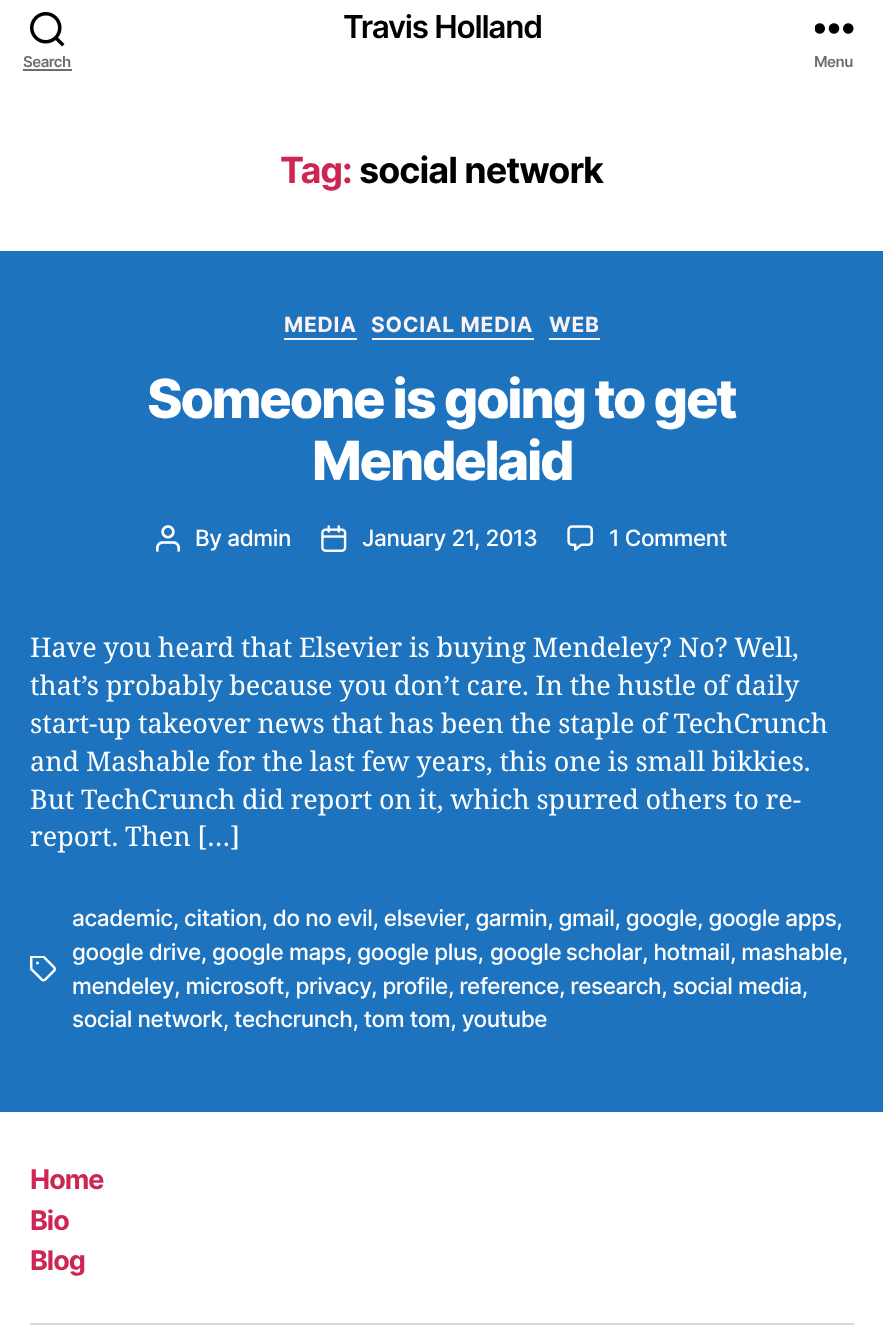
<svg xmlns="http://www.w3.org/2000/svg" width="883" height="1325">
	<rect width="100%" height="100%" fill="#1E73BE" />
	<rect x="0" y="0" width="883" height="251" fill="#FFFFFF" />
	<text x="343" y="38" font-family="Inter" font-size="31.5" font-weight="600" letter-spacing="-1.25" fill="#000000">Travis Holland</text>
	<image x="30" y="12" width="35" height="35" href="assets/img1.png" />
	<text x="23" y="67" font-family="Inter" font-size="15" font-weight="600" letter-spacing="-0.5" fill="#6D6D6D">Search</text>
	<rect x="23" y="69" width="49" height="2" fill="#6D6D6D" />
	<image x="815" y="23" width="39" height="11" href="assets/img2.png" />
	<text x="814" y="67" font-family="Inter" font-size="15" font-weight="600" letter-spacing="-0.5" fill="#6D6D6D">Menu</text>
	<text x="280" y="183" font-family="Inter" font-size="36" font-weight="700" letter-spacing="-1" fill="#CD2653">Tag:</text>
	<text x="359" y="183" font-family="Inter" font-size="36" font-weight="700" letter-spacing="-1" fill="#000000">social network</text>
	<rect x="284" y="338" width="73" height="2" fill="#FCF2F4" />
	<text x="284" y="332" font-family="Inter" font-size="21" font-weight="700" letter-spacing="0.75" fill="#FCF2F4">MEDIA</text>
	<rect x="372" y="338" width="162" height="2" fill="#FCF2F4" />
	<text x="371" y="332" font-family="Inter" font-size="21" font-weight="700" letter-spacing="0.75" fill="#FCF2F4">SOCIAL MEDIA</text>
	<rect x="549" y="338" width="51" height="2" fill="#FCF2F4" />
	<text x="549" y="332" font-family="Inter" font-size="21" font-weight="700" letter-spacing="0.75" fill="#FCF2F4">WEB</text>
	<g font-family="Inter" font-size="54" font-weight="800" letter-spacing="-2.25" fill="#FFFFFF">
		<text x="147" y="418">Someone is going to get</text>
		<text x="312" y="480">Mendelaid</text>
	</g>
	<image x="156" y="525" width="24" height="27" href="assets/img3.png" />
	<text x="195" y="546" font-family="Inter" font-size="22.5" font-weight="500" letter-spacing="-0.4" fill="#FFFFFF">By admin</text>
	<image x="321" y="525" width="26" height="27" href="assets/img4.png" />
	<text x="362" y="546" font-family="Inter" font-size="22.5" font-weight="500" letter-spacing="-0.4" fill="#FFFFFF">January 21, 2013</text>
	<image x="567" y="525" width="26" height="26" href="assets/img5.png" />
	<text x="609" y="546" font-family="Inter" font-size="22.5" font-weight="500" letter-spacing="-0.4" fill="#FFFFFF">1 Comment</text>
	<g font-family="Noto Serif" font-size="27" fill="#FFFFFF">
		<text x="30" y="657" word-spacing="-0.3">Have you heard that Elsevier is buying Mendeley? No? Well,</text>
		<text x="30" y="695" word-spacing="-0.3">that’s probably because you don’t care. In the hustle of daily</text>
		<text x="30" y="733" word-spacing="-0.3">start-up takeover news that has been the staple of TechCrunch</text>
		<text x="30" y="771" word-spacing="-0.3">and Mashable for the last few years, this one is small bikkies.</text>
		<text x="30" y="809" word-spacing="-0.3">But TechCrunch did report on it, which spurred others to re-</text>
		<text x="30" y="846" word-spacing="-0.3">report. Then […]</text>
	</g>
	<image x="30" y="956" width="26" height="26" href="assets/img6.png" />
	<g font-family="Inter" font-size="22.5" font-weight="500" letter-spacing="-0.4" fill="#FFFFFF">
		<text x="72" y="926">academic, citation, do no evil, elsevier</text>
		<text x="464" y="926">, garmin, gmail, google, google apps,</text>
		<text x="72" y="960">google drive, google maps, google plus,</text>
		<text x="490" y="960" word-spacing="-1">google scholar</text>
		<text x="642" y="960">, hotmail, mashable,</text>
		<text x="72" y="994">mendeley</text>
		<text x="174" y="994">, microsoft, privacy</text>
		<text x="371" y="994">, profile, reference, research, social media,</text>
		<text x="72" y="1027">social network, techcrunch, tom tom, youtube</text>
	</g>
	<rect x="0" y="1112" width="883" height="213" fill="#FFFFFF" />
	<rect x="30" y="1323" width="824" height="2" fill="#DCD7CA" />
	<g font-family="Inter" font-size="27" font-weight="700" letter-spacing="-1" fill="#CD2653">
		<text x="30" y="1189">Home</text>
		<text x="30" y="1230">Bio</text>
		<text x="30" y="1270">Blog</text>
	</g>
</svg>
